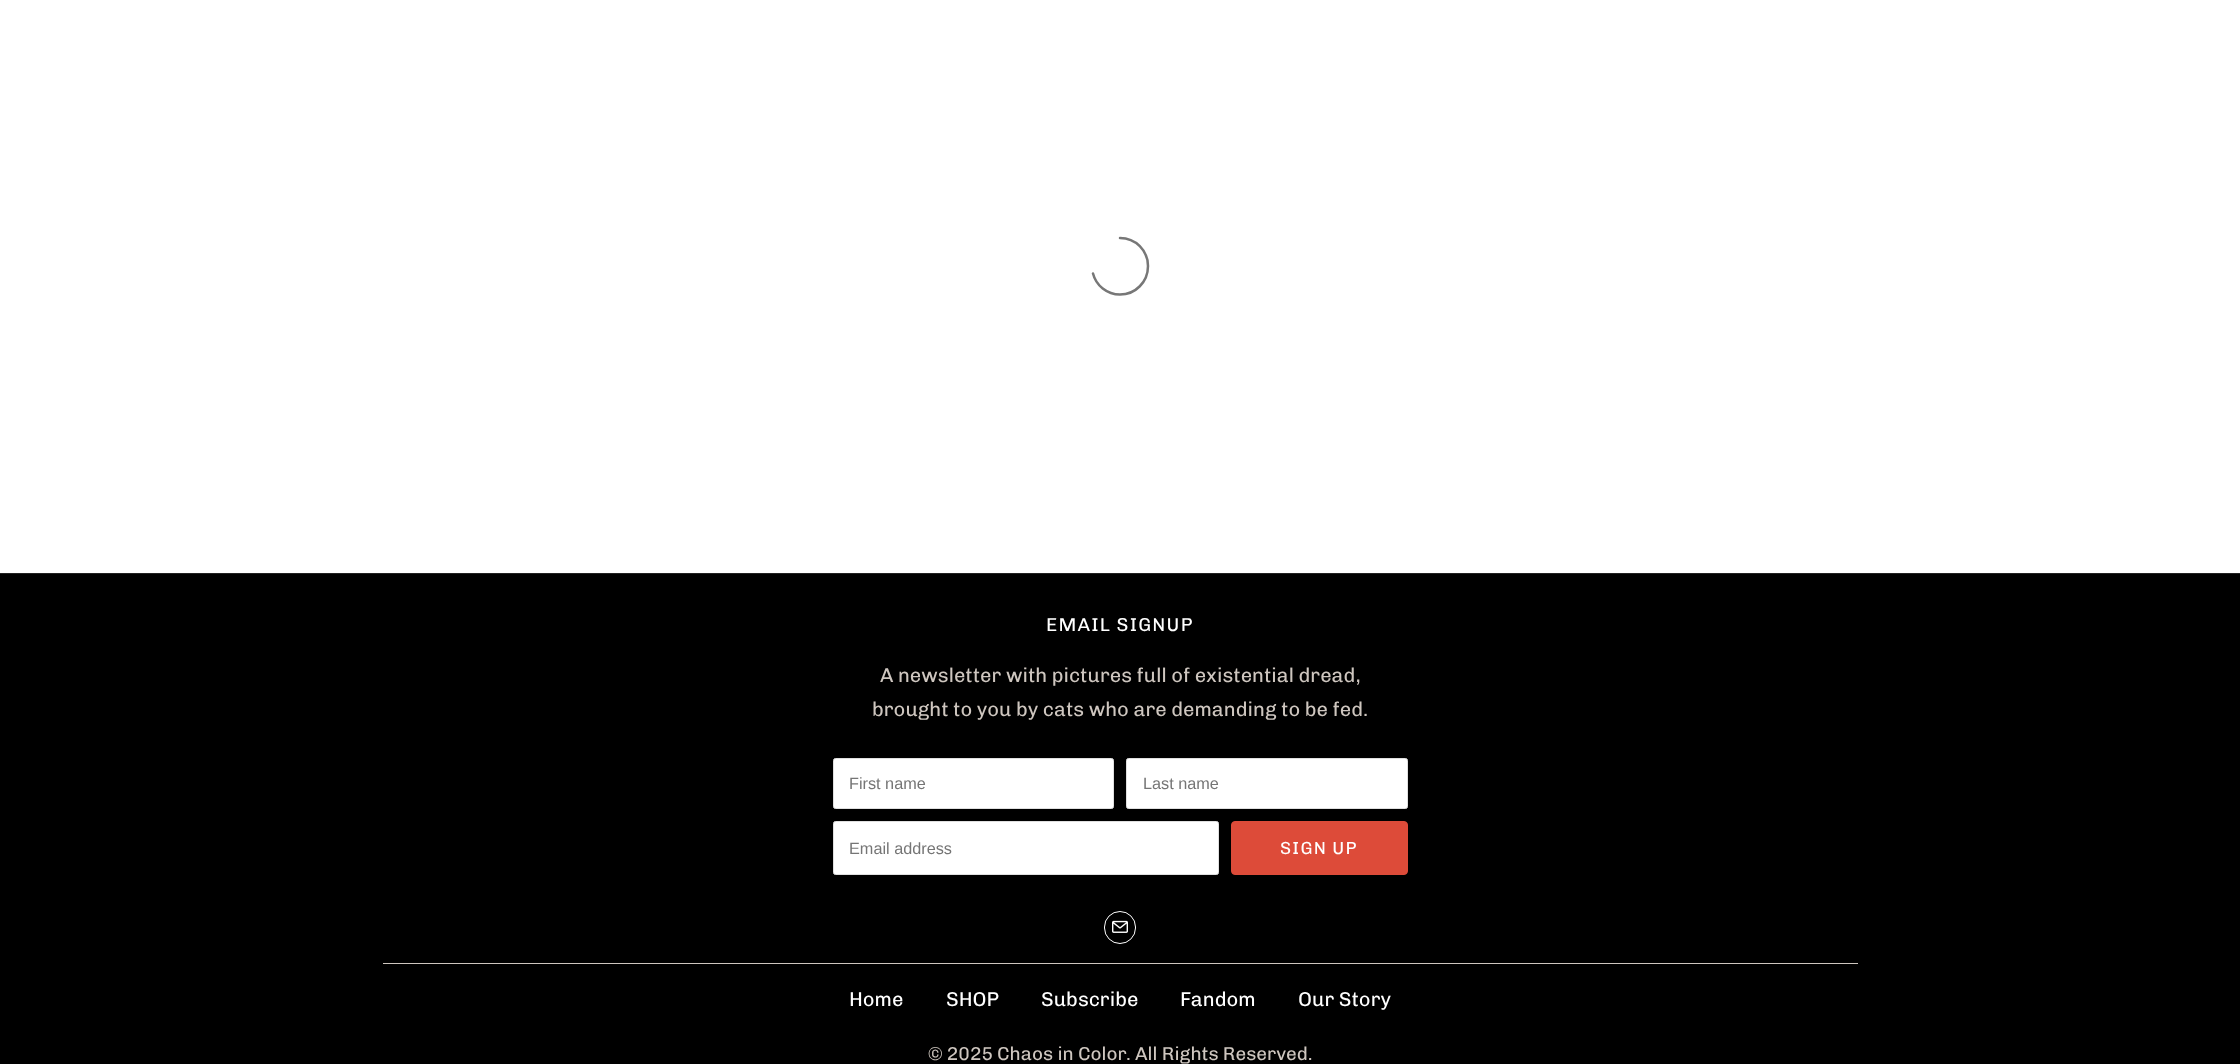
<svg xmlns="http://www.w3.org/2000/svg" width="2240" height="1064">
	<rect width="100%" height="100%" fill="#FFFFFF" />
	<path d="M1120 238C1135.5 238 1148 250.5 1148 266C1148 282 1135.5 294.5 1120 294.5C1107 294.5 1096 285.5 1093 273.5" fill="none" stroke="#777777" stroke-width="2.5" stroke-linecap="round" />
	<rect x="0" y="574" width="2240" height="490" fill="#000000" />
	<rect x="0" y="573" width="2240" height="1" fill="#222222" />
	<text x="1046" y="631" font-family="Chivo" font-size="18.75" letter-spacing="1.25" fill="#FFFFFF">EMAIL SIGNUP</text>
	<g font-family="Chivo" font-size="20" fill="#CEC6BF">
		<text x="880" y="682">A newsletter with pictures full of existential dread,</text>
		<text x="872" y="716">brought to you by cats who are demanding to be fed.</text>
	</g>
	<rect x="833.5" y="758.5" width="280" height="50" rx="2" fill="#FFFFFF" stroke="#DFDFDF" />
	<text x="849" y="789" font-family="Liberation Sans" font-size="16.25" fill="#757575">First name</text>
	<rect x="1126.5" y="758.5" width="281" height="50" rx="2" fill="#FFFFFF" stroke="#DFDFDF" />
	<text x="1143" y="789" font-family="Liberation Sans" font-size="16.25" fill="#757575">Last name</text>
	<rect x="833.5" y="821.5" width="385" height="53" rx="2" fill="#FFFFFF" stroke="#DFDFDF" />
	<text x="849" y="854" font-family="Liberation Sans" font-size="16.25" fill="#757575">Email address</text>
	<rect x="1231.5" y="821.5" width="176" height="53" rx="3.5" fill="#DD4B39" stroke="#DD4B39" />
	<text x="1280" y="854" font-family="Chivo" font-size="17.5" letter-spacing="1.25" fill="#FFFFFF">SIGN UP</text>
	<rect x="1104.5" y="911.5" width="31" height="32" rx="15.5" fill="none" stroke="#FFFFFF" />
	<image x="1112" y="920" width="16" height="13" href="assets/img1.png" />
	<rect x="383" y="963" width="1475" height="1" fill="#CEC6BF" />
	<g font-family="Chivo" font-size="20" fill="#FFFFFF">
		<text x="849" y="1006">Home</text>
		<text x="946" y="1006">SHOP</text>
		<text x="1041" y="1006">Subscribe</text>
		<text x="1180" y="1006">Fandom</text>
		<text x="1298" y="1006">Our Story</text>
	</g>
	<g font-family="Chivo" font-size="18.75" fill="#CEC6BF">
		<text x="928" y="1060">© 2025</text>
		<text x="997" y="1060">Chaos in Color</text>
		<text x="1126" y="1060">. All Rights Reserved.</text>
	</g>
</svg>
